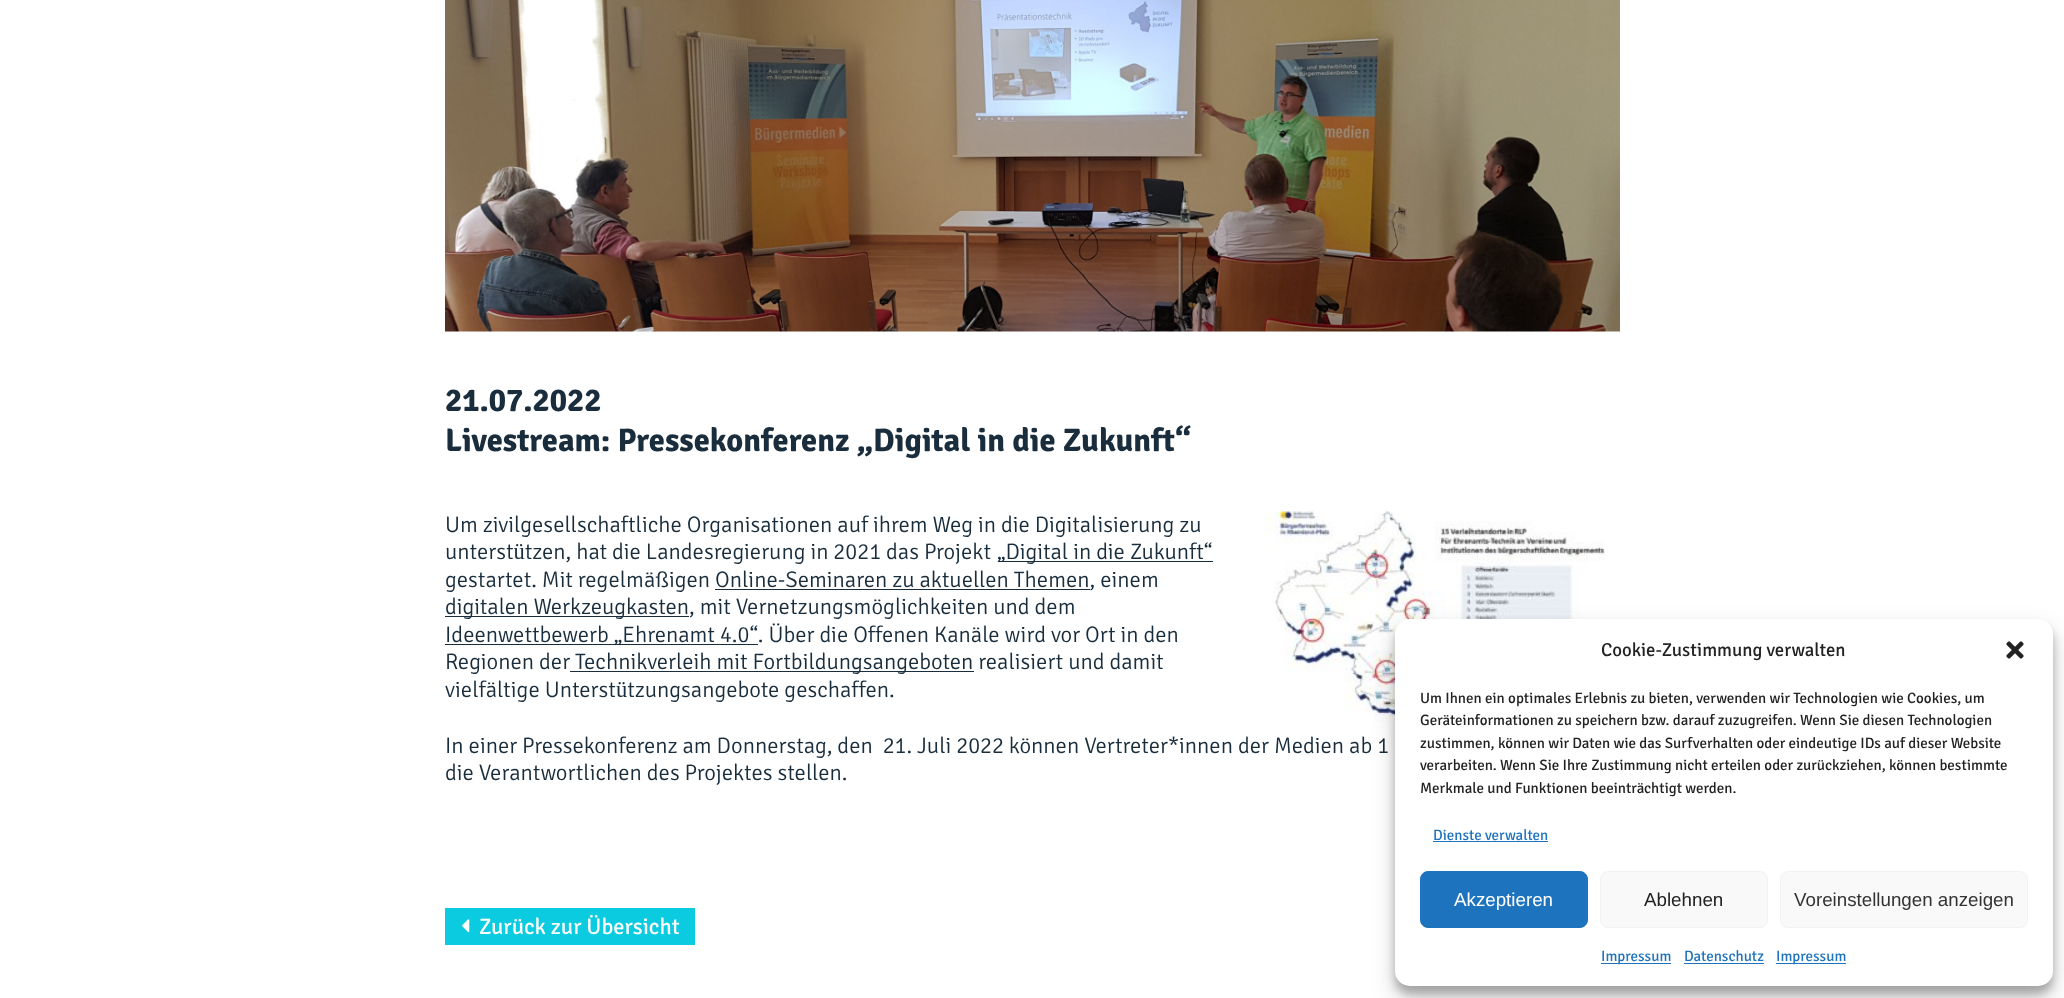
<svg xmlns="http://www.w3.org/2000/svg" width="2064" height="998">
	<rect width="100%" height="100%" fill="#FFFFFF" />
	<image x="445" y="0" width="1175" height="332" href="assets/img1.png" />
	<g font-family="Signika" font-size="32.5" font-weight="700" fill="#192D3C">
		<text x="445" y="411">21.07.2022</text>
		<text x="445" y="451">Livestream: Pressekonferenz „Digital in die Zukunft“</text>
	</g>
	<text x="445" y="532" font-family="Signika" font-size="22.5" font-weight="300" fill="#192D3C">Um zivilgesellschaftliche Organisationen auf ihrem Weg in die Digitalisierung zu</text>
	<image x="1264" y="511" width="341" height="212" href="assets/img2.png" />
	<text x="445" y="559" font-family="Signika" font-size="22.5" font-weight="300" fill="#192D3C">unterstützen, hat die Landesregierung in 2021 das Projekt</text>
	<rect x="998" y="561" width="215" height="1" fill="#192D3C" />
	<g font-family="Signika" font-size="22.5" font-weight="300" fill="#192D3C">
		<text x="997" y="559">„Digital in die Zukunft“</text>
		<text x="445" y="587">gestartet. Mit regelmäßigen Online-Seminaren zu aktuellen Themen, einem</text>
	</g>
	<rect x="715" y="589" width="375" height="1" fill="#192D3C" />
	<rect x="445" y="616" width="244" height="1" fill="#192D3C" />
	<text x="445" y="614" font-family="Signika" font-size="22.5" font-weight="300" fill="#192D3C">digitalen Werkzeugkasten, mit Vernetzungsmöglichkeiten und dem</text>
	<rect x="445" y="644" width="313" height="1" fill="#192D3C" />
	<g font-family="Signika" font-size="22.5" font-weight="300" fill="#192D3C">
		<text x="445" y="642">Ideenwettbewerb „Ehrenamt 4.0“. Über die Offenen Kanäle wird vor Ort in den</text>
		<text x="445" y="669">Regionen der</text>
	</g>
	<rect x="570" y="671" width="404" height="1" fill="#192D3C" />
	<g font-family="Signika" font-size="22.5" font-weight="300" fill="#192D3C">
		<text x="575" y="669">Technikverleih mit Fortbildungsangeboten realisiert und damit</text>
		<text x="445" y="697">vielfältige Unterstützungsangebote geschaffen.</text>
		<text x="445" y="753" xml:space="preserve">In einer Pressekonferenz am Donnerstag, den  21. Juli 2022 können Vertreter*innen der Medien ab 1</text>
		<text x="445" y="780">die Verantwortlichen des Projektes stellen.</text>
	</g>
	<rect x="445" y="908" width="250" height="37" fill="#0BCBE0" />
	<image x="462" y="919" width="8" height="14" href="assets/img3.png" />
	<text x="479" y="934" font-family="Signika" font-size="22.5" fill="#FFFFFF">Zurück zur Übersicht</text>
	<rect x="1395" y="626" width="658" height="368" rx="15" fill="#000000" fill-opacity="0.23" filter="blur(4px)" />
	<rect x="1395" y="631" width="658" height="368" rx="15" fill="#000000" fill-opacity="0.19" filter="blur(12.5px)" />
	<rect x="1395" y="619" width="658" height="367" rx="15" fill="#FFFFFF" />
	<text x="1601" y="656" font-family="Signika" font-size="18.75" fill="#222222">Cookie-Zustimmung verwalten</text>
	<image x="2006" y="641" width="18" height="18" href="assets/img4.png" />
	<g font-family="Signika" font-size="15" fill="#222222">
		<text x="1420" y="703">Um Ihnen ein optimales Erlebnis zu bieten, verwenden wir Technologien wie Cookies, um</text>
		<text x="1420" y="725">Geräteinformationen zu speichern bzw. darauf zuzugreifen. Wenn Sie diesen Technologien</text>
		<text x="1420" y="748">zustimmen, können wir Daten wie das Surfverhalten oder eindeutige IDs auf dieser Website</text>
		<text x="1420" y="770">verarbeiten. Wenn Sie Ihre Zustimmung nicht erteilen oder zurückziehen, können bestimmte</text>
		<text x="1420" y="793">Merkmale und Funktionen beeinträchtigt werden.</text>
	</g>
	<text x="1433" y="840" font-family="Signika" font-size="15" fill="#1E73BE">Dienste verwalten</text>
	<rect x="1433" y="841" width="115" height="1" fill="#1E73BE" />
	<rect x="1420.5" y="871.5" width="167" height="56" rx="7.5" fill="#1E73BE" stroke="#1E73BE" />
	<text x="1454" y="906" font-family="Liberation Sans" font-size="18.75" fill="#FFFFFF">Akzeptieren</text>
	<rect x="1600.5" y="871.5" width="167" height="56" rx="7.5" fill="#F9F9F9" stroke="#F2F2F2" />
	<text x="1644" y="906" font-family="Liberation Sans" font-size="18.75" fill="#222222">Ablehnen</text>
	<rect x="1780.5" y="871.5" width="247" height="56" rx="7.5" fill="#F9F9F9" stroke="#F2F2F2" />
	<text x="1794" y="906" font-family="Liberation Sans" font-size="18.75" fill="#333333">Voreinstellungen anzeigen</text>
	<rect x="1601" y="963" width="70" height="1" fill="#1E73BE" />
	<g font-family="Signika" font-size="15" fill="#1E73BE">
		<text x="1601" y="961">Impressum</text>
		<text x="1684" y="961">Datenschutz</text>
	</g>
	<rect x="1684" y="963" width="80" height="1" fill="#1E73BE" />
	<rect x="1776" y="963" width="70" height="1" fill="#1E73BE" />
	<text x="1776" y="961" font-family="Signika" font-size="15" fill="#1E73BE">Impressum</text>
</svg>
